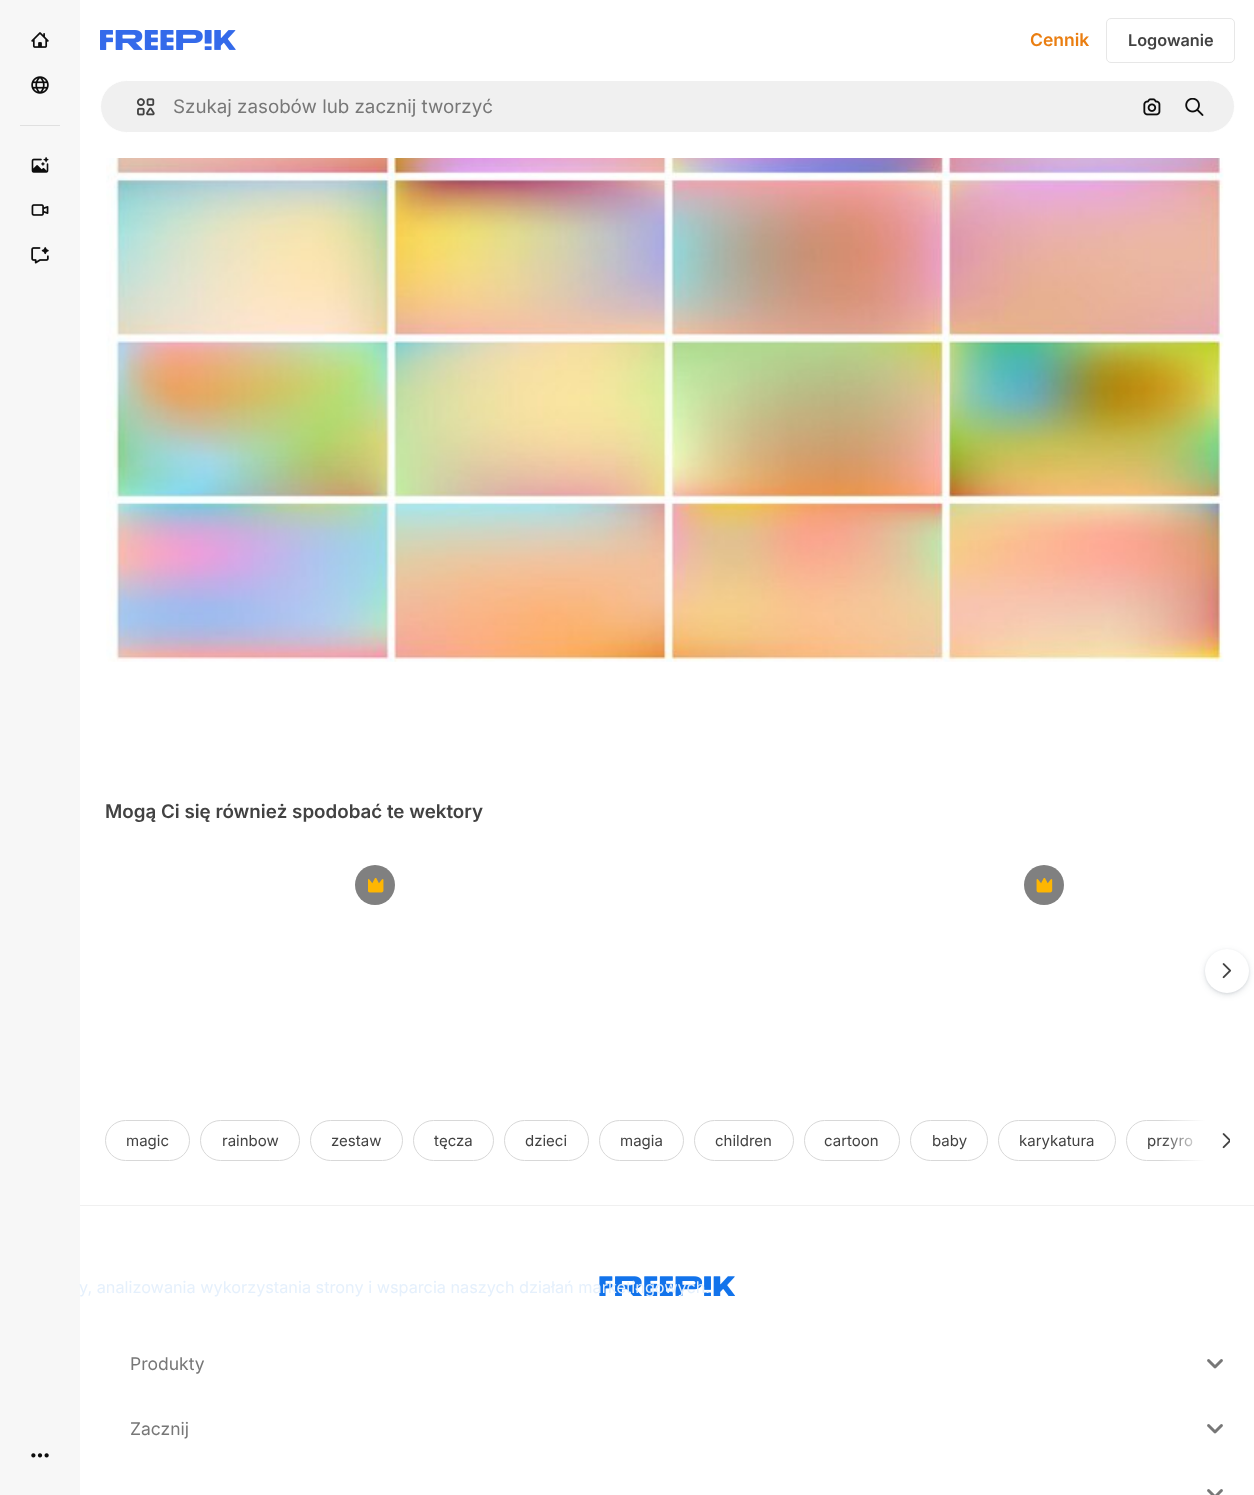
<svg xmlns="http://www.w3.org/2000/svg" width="1254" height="1495">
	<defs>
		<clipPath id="clip1"><rect x="105" y="1120" width="1125" height="41" /></clipPath>
		<linearGradient id="g1" gradientUnits="userSpaceOnUse" x1="1205" y1="1141" x2="1161" y2="1141"><stop offset="0" stop-color="#FFFFFF" /><stop offset="1" stop-color="#FFFFFF" stop-opacity="0" /></linearGradient>
	</defs>
	<rect width="100%" height="100%" fill="#FFFFFF" />
	<rect x="0" y="0" width="80" height="1495" fill="#F7F7F7" />
	<image x="31" y="32" width="18" height="16" href="assets/img1.png" />
	<image x="31" y="76" width="18" height="18" href="assets/img2.png" />
	<rect x="20" y="125" width="40" height="1" fill="#E0E0E0" />
	<image x="31" y="157" width="18" height="16" href="assets/img3.png" />
	<image x="31" y="204" width="18" height="12" href="assets/img4.png" />
	<image x="31" y="247" width="18" height="17" href="assets/img5.png" />
	<image x="31" y="1453" width="18" height="5" href="assets/img6.png" />
	<image x="100" y="30" width="136" height="20" href="assets/img7.png" />
	<text x="1030" y="46" font-family="Inter" font-size="17.5" font-weight="600" fill="#EA7E11">Cennik</text>
	<rect x="1106.5" y="18.5" width="128" height="44" rx="4.5" fill="none" stroke="#E7E7E7" />
	<text x="1128" y="46" font-family="Inter" font-size="16.25" font-weight="600" fill="#424242">Logowanie</text>
	<rect x="100.5" y="80.5" width="1134" height="52" rx="26" fill="#F0F0F0" stroke="#FFFFFF" />
	<image x="136" y="98" width="19" height="18" href="assets/img8.png" />
	<text x="173" y="113" font-family="Inter" font-size="18.75" fill="#777777">Szukaj zasobów lub zacznij tworzyć</text>
	<image x="1143" y="98" width="18" height="18" href="assets/img9.png" />
	<image x="1185" y="98" width="19" height="18" href="assets/img10.png" />
	<image x="106" y="158" width="1118" height="504" href="assets/img11.png" />
	<text x="105" y="818" font-family="Inter" font-size="18.75" font-weight="600" fill="#424242">Mogą Ci się również spodobać te wektory</text>
	<circle cx="375" cy="885" r="20" fill="#808080" />
	<image x="368" y="878" width="16" height="15" href="assets/img12.png" />
	<circle cx="1044" cy="885" r="20" fill="#808080" />
	<image x="1036" y="878" width="17" height="15" href="assets/img13.png" />
	<rect x="1205" y="951" width="44" height="44" rx="22" fill="#374957" fill-opacity="0.15" filter="blur(3px)" />
	<rect x="1205" y="950" width="44" height="44" rx="22" fill="#374957" fill-opacity="0.1" filter="blur(1px)" />
	<circle cx="1227" cy="971" r="22" fill="#FFFFFF" />
	<image x="1222" y="963" width="10" height="16" href="assets/img14.png" />
	<rect x="105.5" y="1120.5" width="84" height="40" rx="20" fill="none" stroke="#D8D8D8" />
	<text x="126" y="1146" font-family="Inter" font-size="15" fill="#424242">magic</text>
	<rect x="200.5" y="1120.5" width="99" height="40" rx="20" fill="none" stroke="#D8D8D8" />
	<text x="222" y="1146" font-family="Inter" font-size="15" fill="#424242">rainbow</text>
	<rect x="310.5" y="1120.5" width="92" height="40" rx="20" fill="none" stroke="#D8D8D8" />
	<text x="331" y="1146" font-family="Inter" font-size="15" fill="#424242">zestaw</text>
	<rect x="413.5" y="1120.5" width="80" height="40" rx="20" fill="none" stroke="#D8D8D8" />
	<text x="434" y="1146" font-family="Inter" font-size="15" fill="#424242">tęcza</text>
	<rect x="504.5" y="1120.5" width="84" height="40" rx="20" fill="none" stroke="#D8D8D8" />
	<text x="525" y="1146" font-family="Inter" font-size="15" fill="#424242">dzieci</text>
	<rect x="599.5" y="1120.5" width="84" height="40" rx="20" fill="none" stroke="#D8D8D8" />
	<text x="620" y="1146" font-family="Inter" font-size="15" fill="#424242">magia</text>
	<rect x="694.5" y="1120.5" width="99" height="40" rx="20" fill="none" stroke="#D8D8D8" />
	<text x="715" y="1146" font-family="Inter" font-size="15" fill="#424242">children</text>
	<rect x="804.5" y="1120.5" width="95" height="40" rx="20" fill="none" stroke="#D8D8D8" />
	<text x="824" y="1146" font-family="Inter" font-size="15" fill="#424242">cartoon</text>
	<rect x="910.5" y="1120.5" width="77" height="40" rx="20" fill="none" stroke="#D8D8D8" />
	<text x="932" y="1146" font-family="Inter" font-size="15" fill="#424242">baby</text>
	<rect x="998.5" y="1120.5" width="117" height="40" rx="20" fill="none" stroke="#D8D8D8" />
	<text x="1019" y="1146" font-family="Inter" font-size="15" fill="#424242">karykatura</text>
	<g clip-path="url(#clip1)">
		<rect x="1126.5" y="1120.5" width="106" height="40" rx="20" fill="none" stroke="#D8D8D8" />
	</g>
	<text x="1147" y="1146" font-family="Inter" font-size="15" fill="#424242">przyro</text>
	<rect x="1205" y="1120" width="25" height="41" fill="#FFFFFF" />
	<rect x="1163" y="1120" width="42" height="41" fill="url(#g1)" />
	<image x="1222" y="1133" width="8" height="16" href="assets/img15.png" />
	<rect x="80" y="1205" width="1174" height="1" fill="#F0F0F0" />
	<image x="599" y="1276" width="136" height="20" href="assets/img16.png" />
	<text x="130" y="1370" font-family="Inter" font-size="17.5" fill="#777777">Produkty</text>
	<image x="1207" y="1359" width="16" height="10" href="assets/img17.png" />
	<text x="130" y="1435" font-family="Inter" font-size="17.5" fill="#777777">Zacznij</text>
	<image x="1207" y="1424" width="16" height="10" href="assets/img17.png" />
	<image x="1207" y="1489" width="16" height="6" href="assets/img18.png" />
	<text x="79" y="1293" font-family="Inter" font-size="16.25" fill="#E5F0FC">y, analizowania wykorzystania strony i wsparcia naszych działań marketingowych.</text>
</svg>
